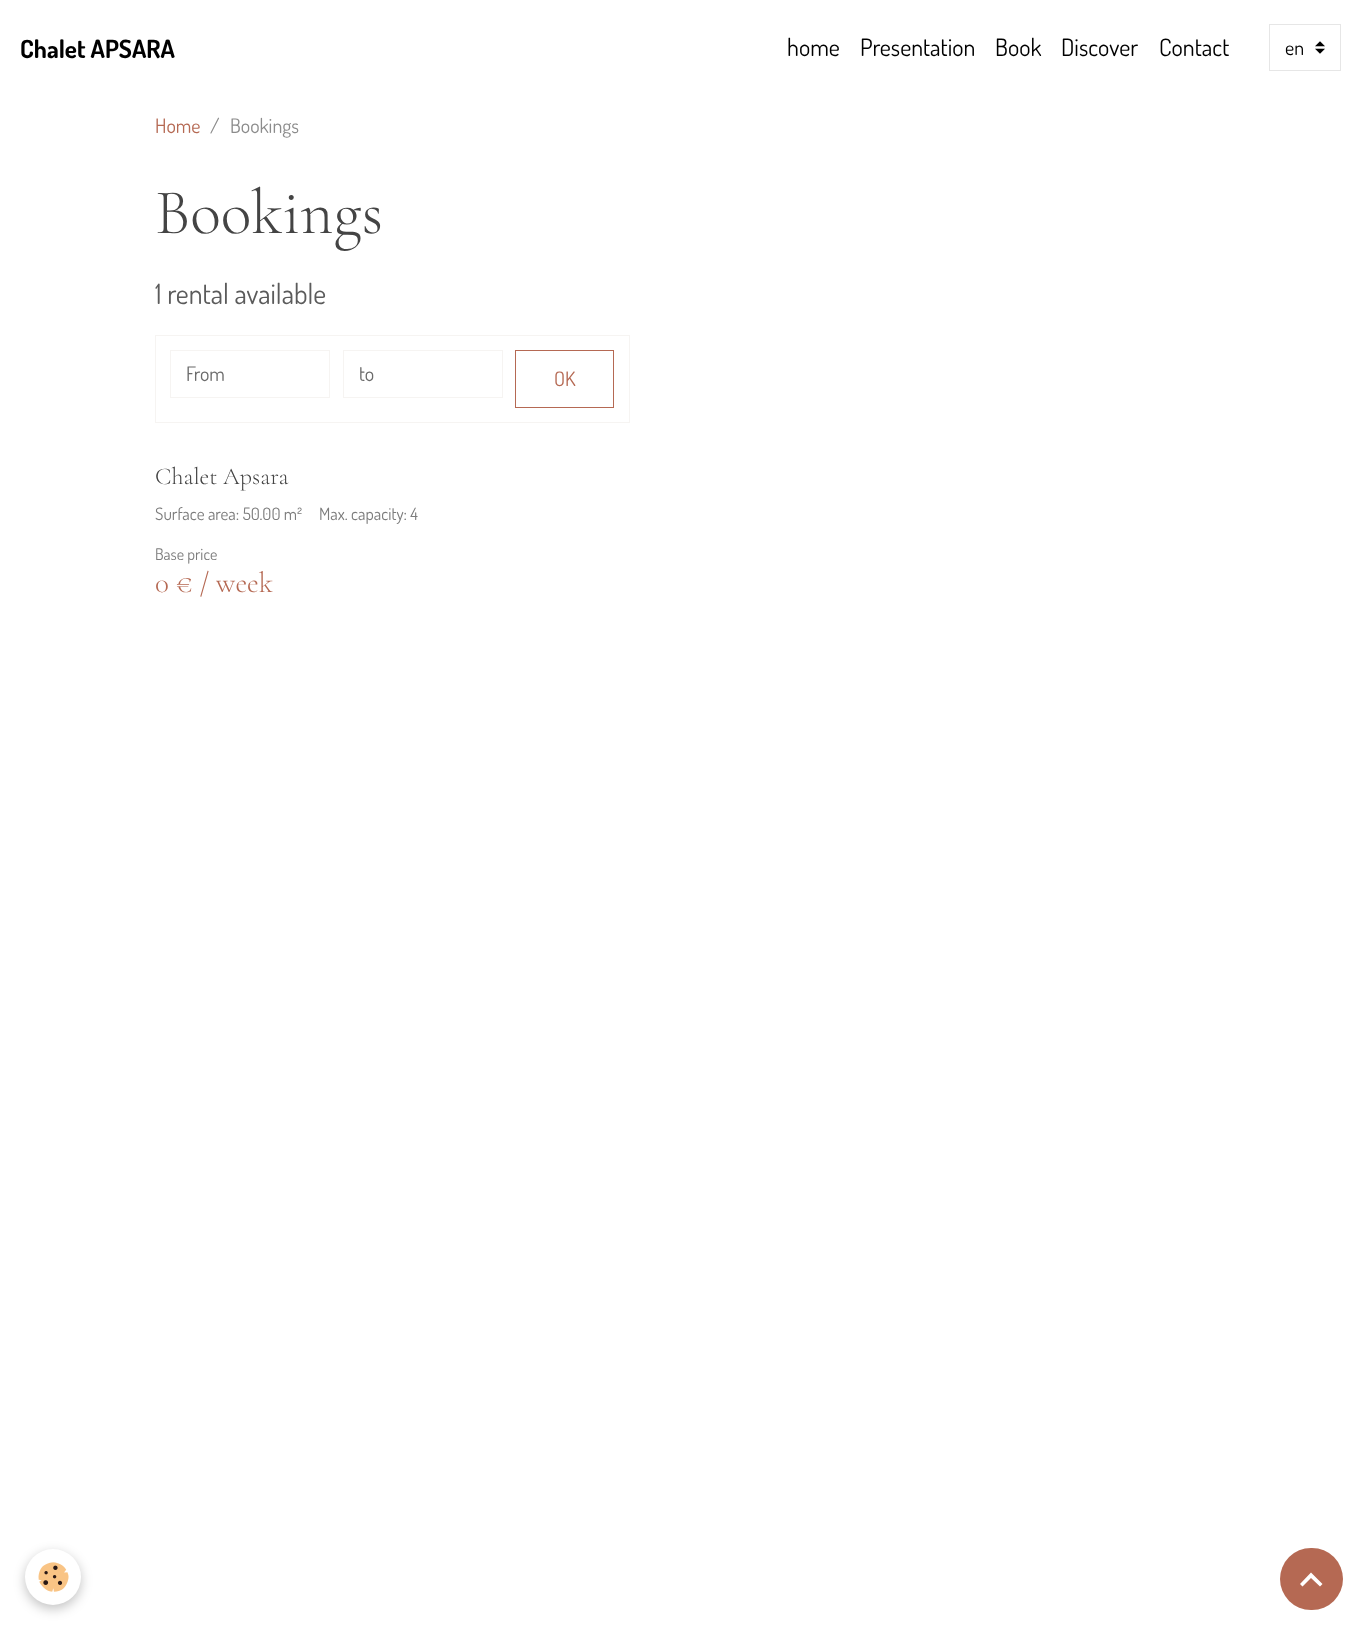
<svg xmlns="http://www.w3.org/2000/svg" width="1361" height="1628">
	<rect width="100%" height="100%" fill="#FFFFFF" />
	<text x="20" y="58" font-family="Dosis" font-size="25" font-weight="700" fill="#000000">Chalet APSARA</text>
	<g font-family="Dosis" font-size="24" fill="#000000">
		<text x="787" y="56">home</text>
		<text x="860" y="56">Presentation</text>
		<text x="995" y="56">Book</text>
		<text x="1061" y="56">Discover</text>
		<text x="1159" y="56">Contact</text>
	</g>
	<image x="1315" y="41" width="10" height="13" href="assets/img1.png" />
	<rect x="1269.5" y="24.5" width="71" height="46" fill="none" stroke="#E6E6E6" />
	<text x="1285" y="55" font-family="Dosis" font-size="20" fill="#000000">en</text>
	<text x="155" y="133" font-family="Dosis" font-size="20" fill="#B56953">Home</text>
	<g font-family="Dosis" font-size="20" fill="#8C8C8C">
		<text x="210" y="133">/</text>
		<text x="230" y="133">Bookings</text>
	</g>
	<text x="155" y="233" font-family="Cormorant Garamond" font-size="64" font-weight="300" fill="#444444">Bookings</text>
	<text x="155" y="304" font-family="Dosis" font-size="28" fill="#5B5B5B">1 rental available</text>
	<rect x="155.5" y="335.5" width="474" height="87" fill="none" stroke="#F6F4F2" />
	<rect x="170.5" y="350.5" width="159" height="47" fill="none" stroke="#F6F4F2" />
	<text x="186" y="381" font-family="Dosis" font-size="20" fill="#6B6B6B">From</text>
	<rect x="343.5" y="350.5" width="159" height="47" fill="none" stroke="#F6F4F2" />
	<text x="359" y="381" font-family="Dosis" font-size="20" fill="#6B6B6B">to</text>
	<rect x="515.5" y="350.5" width="98" height="57" fill="none" stroke="#B56953" />
	<text x="554" y="386" font-family="Dosis" font-size="20" fill="#B56953">OK</text>
	<text x="155" y="484" font-family="Cormorant Garamond" font-size="24" font-weight="300" fill="#444444">Chalet Apsara</text>
	<g font-family="Dosis" font-size="17" fill="#7C7C7C">
		<text x="155" y="520">Surface area: 50.00 m²</text>
		<text x="319" y="520">Max. capacity: 4</text>
	</g>
	<text x="155" y="560" font-family="Dosis" font-size="16" fill="#7C7C7C">Base price</text>
	<text x="155" y="592" font-family="Cormorant Garamond" font-size="29" font-weight="300" fill="#B56953">0 € / week</text>
	<rect x="25" y="1553" width="56" height="56" rx="28" fill="#000000" fill-opacity="0.24" filter="blur(6px)" />
	<circle cx="53" cy="1577" r="28" fill="#FFFFFF" />
	<image x="38" y="1562" width="31" height="30" href="assets/img2.png" />
	<rect x="1280" y="1548" width="63" height="62" rx="31" fill="#B56953" />
	<path d="M1311 1572.5L1322.5 1584L1320 1586.5L1311 1578L1302.5 1586.5L1300 1584Z" fill="#FFFFFF" />
</svg>
